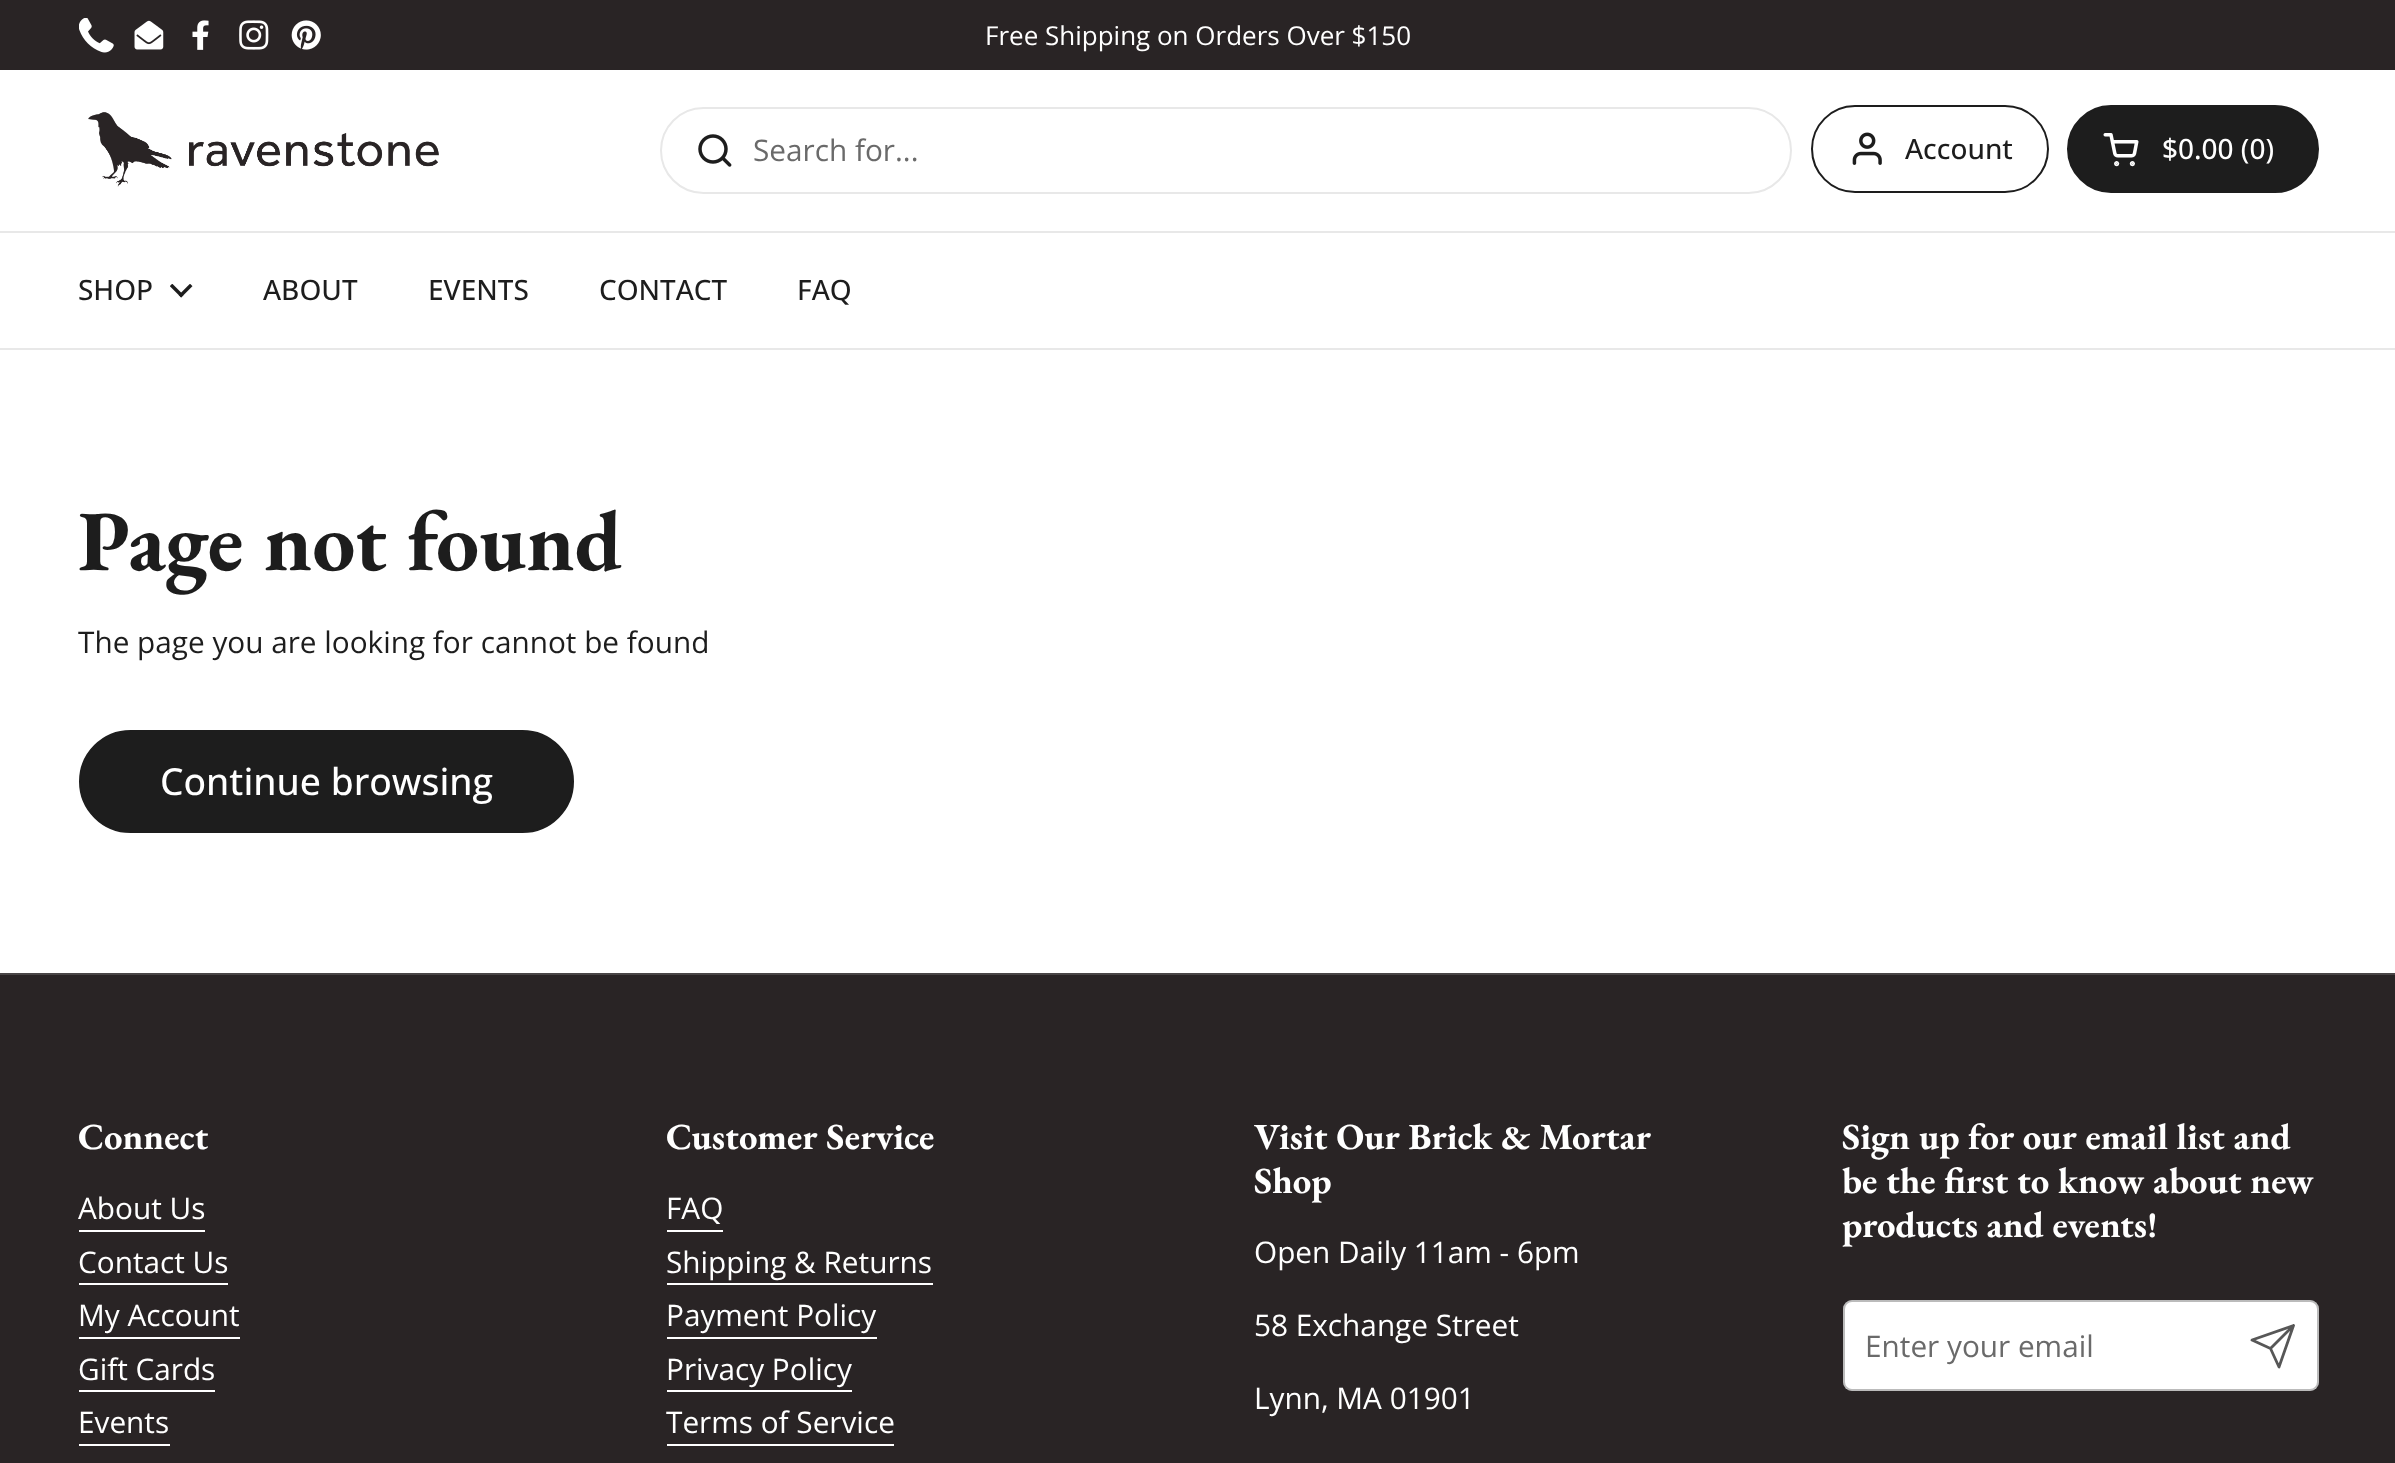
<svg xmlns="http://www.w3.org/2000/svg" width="2395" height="1463">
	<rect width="100%" height="100%" fill="#FFFFFF" />
	<rect x="0" y="0" width="2395" height="70" fill="#292425" />
	<image x="79" y="18" width="35" height="35" href="assets/img1.png" />
	<image x="134" y="20" width="30" height="30" href="assets/img2.png" />
	<image x="192" y="20" width="17" height="30" href="assets/img3.png" />
	<image x="239" y="20" width="30" height="30" href="assets/img4.png" />
	<image x="291" y="20" width="30" height="30" href="assets/img5.png" />
	<text x="985" y="45" font-family="Open Sans" font-size="26" fill="#FFFFFF">Free Shipping on Orders Over $150</text>
	<rect x="0" y="231" width="2395" height="2" fill="#E8E8E8" />
	<image x="88" y="112" width="351" height="75" href="assets/img6.png" />
	<rect x="661" y="108" width="1130" height="85" rx="42.5" fill="none" stroke="#E8E8E8" stroke-width="2" />
	<image x="698" y="134" width="34" height="33" href="assets/img7.png" />
	<text x="753" y="161" font-family="Open Sans" font-size="29.75" fill="#6A6A6A">Search for...</text>
	<rect x="1812" y="106" width="236" height="86" rx="43" fill="none" stroke="#1D1D1D" stroke-width="2" />
	<image x="1852" y="132" width="30" height="33" href="assets/img8.png" />
	<text x="1905" y="159" font-family="Open Sans" font-size="28" font-weight="500" fill="#1D1D1D">Account</text>
	<rect x="2068" y="106" width="250" height="86" rx="43" fill="#1D1D1D" stroke="#1D1D1D" stroke-width="2" />
	<image x="2103" y="133" width="36" height="34" href="assets/img9.png" />
	<text x="2162" y="159" font-family="Open Sans" font-size="28" font-weight="500" fill="#FFFFFF">$0.00 (0)</text>
	<rect x="0" y="348" width="2395" height="2" fill="#E8E8E8" />
	<text x="78" y="300" font-family="Open Sans" font-size="28" font-weight="500" fill="#1D1D1D">SHOP</text>
	<image x="170" y="284" width="23" height="14" href="assets/img10.png" />
	<g font-family="Open Sans" font-size="28" font-weight="500" fill="#1D1D1D">
		<text x="263" y="300">ABOUT</text>
		<text x="428" y="300">EVENTS</text>
		<text x="599" y="300">CONTACT</text>
		<text x="797" y="300">FAQ</text>
	</g>
	<text x="78" y="570" font-family="EB Garamond" font-size="85.75" font-weight="700" fill="#1D1D1D">Page not found</text>
	<text x="78" y="653" font-family="Open Sans" font-size="29.75" fill="#1D1D1D">The page you are looking for cannot be found</text>
	<rect x="80" y="731" width="493" height="101" rx="50.5" fill="#1D1D1D" stroke="#1D1D1D" stroke-width="2" />
	<text x="160" y="795" font-family="Open Sans" font-size="37.25" font-weight="500" fill="#FFFFFF">Continue browsing</text>
	<rect x="0" y="975" width="2395" height="488" fill="#292425" />
	<rect x="0" y="973" width="2395" height="2" fill="#494546" />
	<text x="78" y="1149" font-family="EB Garamond" font-size="36.75" font-weight="700" fill="#FFFFFF">Connect</text>
	<text x="78" y="1219" font-family="Open Sans" font-size="29.75" fill="#FFFFFF">About Us</text>
	<rect x="79" y="1230" width="126" height="2" fill="#FFFFFF" />
	<text x="78" y="1273" font-family="Open Sans" font-size="29.75" fill="#FFFFFF">Contact Us</text>
	<rect x="79" y="1283" width="149" height="2" fill="#FFFFFF" />
	<text x="78" y="1326" font-family="Open Sans" font-size="29.75" fill="#FFFFFF">My Account</text>
	<rect x="79" y="1337" width="161" height="2" fill="#FFFFFF" />
	<text x="78" y="1380" font-family="Open Sans" font-size="29.75" fill="#FFFFFF">Gift Cards</text>
	<rect x="79" y="1390" width="136" height="2" fill="#FFFFFF" />
	<text x="78" y="1433" font-family="Open Sans" font-size="29.75" fill="#FFFFFF">Events</text>
	<rect x="79" y="1444" width="91" height="2" fill="#FFFFFF" />
	<text x="666" y="1149" font-family="EB Garamond" font-size="36.75" font-weight="700" fill="#FFFFFF">Customer Service</text>
	<text x="666" y="1219" font-family="Open Sans" font-size="29.75" fill="#FFFFFF">FAQ</text>
	<rect x="667" y="1230" width="56" height="2" fill="#FFFFFF" />
	<text x="666" y="1273" font-family="Open Sans" font-size="29.75" fill="#FFFFFF">Shipping &amp; Returns</text>
	<rect x="667" y="1283" width="266" height="2" fill="#FFFFFF" />
	<text x="666" y="1326" font-family="Open Sans" font-size="29.75" fill="#FFFFFF">Payment Policy</text>
	<rect x="667" y="1337" width="210" height="2" fill="#FFFFFF" />
	<text x="666" y="1380" font-family="Open Sans" font-size="29.75" fill="#FFFFFF">Privacy Policy</text>
	<rect x="667" y="1390" width="185" height="2" fill="#FFFFFF" />
	<text x="666" y="1433" font-family="Open Sans" font-size="29.75" fill="#FFFFFF">Terms of Service</text>
	<rect x="667" y="1444" width="227" height="2" fill="#FFFFFF" />
	<g font-family="EB Garamond" font-size="36.75" font-weight="700" fill="#FFFFFF">
		<text x="1254" y="1149">Visit Our Brick &amp; Mortar</text>
		<text x="1254" y="1193">Shop</text>
	</g>
	<g font-family="Open Sans" font-size="29.75" fill="#FFFFFF">
		<text x="1254" y="1263">Open Daily 11am - 6pm</text>
		<text x="1254" y="1336">58 Exchange Street</text>
		<text x="1254" y="1409">Lynn, MA 01901</text>
	</g>
	<g font-family="EB Garamond" font-size="36.75" font-weight="700" fill="#FFFFFF">
		<text x="1842" y="1149">Sign up for our email list and</text>
		<text x="1842" y="1193">be the first to know about new</text>
		<text x="1842" y="1237">products and events!</text>
	</g>
	<rect x="1843" y="1300" width="476" height="91" rx="9" fill="#FFFFFF" />
	<rect x="1844" y="1301" width="474" height="89" rx="8" fill="none" stroke="#1D1D1D" stroke-opacity="0.3" stroke-width="2" />
	<text x="1865" y="1357" font-family="Open Sans" font-size="29.75" fill="#6A6A6A">Enter your email</text>
	<path d="M2293.5 1325.5L2270.5 1348.5M2293.5 1325.5L2279 1367L2270.5 1348.5L2252 1340Z" fill="none" stroke="#575757" stroke-width="2.8" stroke-linecap="round" stroke-linejoin="round" />
</svg>
